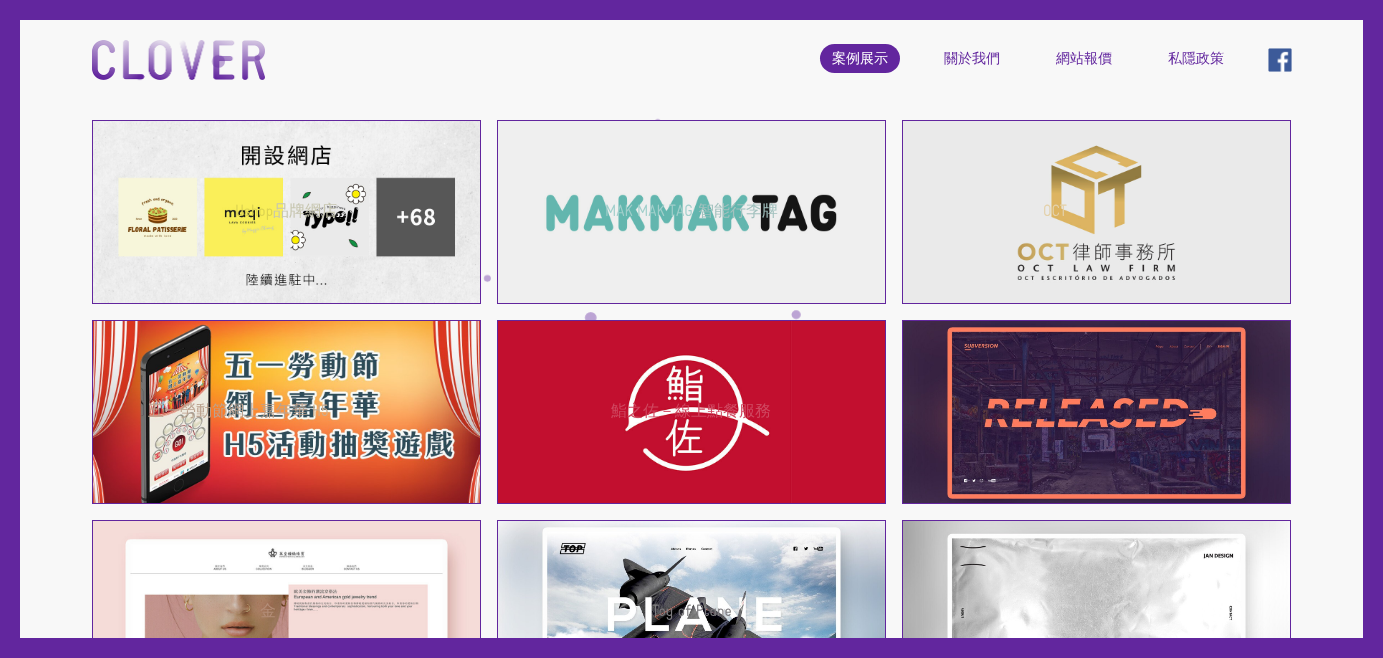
<svg xmlns="http://www.w3.org/2000/svg" width="1383" height="658">
	<rect width="100%" height="100%" fill="#F8F8F8" />
	<rect x="0" y="0" width="1383" height="20" fill="#62269E" />
	<rect x="0" y="20" width="20" height="618" fill="#62269E" />
	<image x="136" y="54" width="665" height="266" href="assets/img12.png" />
	<image x="92" y="40" width="173" height="40" href="assets/img1.png" />
	<rect x="820" y="44" width="80" height="29" rx="14.5" fill="#62269E" />
	<text x="832" y="63" font-family="WenQuanYi Zen Hei" font-size="14" font-weight="500" fill="#FFFFFF">案例展示</text>
	<g font-family="WenQuanYi Zen Hei" font-size="14" font-weight="500" fill="#62269E">
		<text x="944" y="63">關於我們</text>
		<text x="1056" y="63">網站報價</text>
		<text x="1168" y="63">私隱政策</text>
	</g>
	<image x="1268" y="48" width="24" height="24" href="assets/img2.png" />
	<rect x="92.5" y="120.5" width="388" height="183" fill="none" stroke="#62269E" />
	<image x="93" y="121" width="387" height="182" href="assets/img3.png" />
	<text x="235" y="216" font-family="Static" font-size="16" fill="#DCD350">Ushop</text>
	<text x="273" y="216" font-family="WenQuanYi Zen Hei" font-size="16" font-weight="500" fill="#C7C6B0">品牌網店</text>
	<rect x="497.5" y="120.5" width="388" height="183" fill="none" stroke="#62269E" />
	<image x="498" y="121" width="387" height="182" href="assets/img4.png" />
	<text x="605" y="216" font-family="Static" font-size="16" fill="#A1CFCB">MAK MAK TAG</text>
	<text x="698" y="216" font-family="WenQuanYi Zen Hei" font-size="16" font-weight="500" fill="#A2C1BE">智能行李牌</text>
	<rect x="902.5" y="120.5" width="388" height="183" fill="none" stroke="#62269E" />
	<image x="903" y="121" width="387" height="182" href="assets/img5.png" />
	<text x="1043" y="216" font-family="Static" font-size="16" fill="#E4D1AA">OCT</text>
	<rect x="92.5" y="320.5" width="388" height="183" fill="none" stroke="#62269E" />
	<image x="93" y="321" width="387" height="182" href="assets/img6.png" />
	<text x="148" y="416" font-family="WenQuanYi Zen Hei" font-size="16" font-weight="500" fill="#BCA390">五一勞動節網上嘉年華</text>
	<text x="312" y="416" font-family="Static" font-size="16" fill="#CCAE8E">H5</text>
	<rect x="497.5" y="320.5" width="388" height="183" fill="none" stroke="#62269E" />
	<image x="498" y="321" width="387" height="182" href="assets/img7.png" />
	<text x="611" y="416" font-family="WenQuanYi Zen Hei" font-size="16" font-weight="500" fill="#CF475F">鮨之佐－線上點餐服務</text>
	<rect x="902.5" y="320.5" width="388" height="183" fill="none" stroke="#62269E" />
	<image x="903" y="321" width="387" height="182" href="assets/img8.png" />
	<rect x="92.5" y="520.5" width="388" height="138" fill="none" stroke="#62269E" />
	<image x="93" y="521" width="387" height="117" href="assets/img9.png" />
	<text x="260" y="616" font-family="WenQuanYi Zen Hei" font-size="16" font-weight="500" fill="#B38D78">金</text>
	<rect x="497.5" y="520.5" width="388" height="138" fill="none" stroke="#62269E" />
	<image x="498" y="521" width="387" height="117" href="assets/img10.png" />
	<text x="652" y="616" font-family="Static" font-size="16" fill="#7E7C7F">Toy of Plane</text>
	<rect x="902.5" y="520.5" width="388" height="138" fill="none" stroke="#62269E" />
	<image x="903" y="521" width="387" height="117" href="assets/img11.png" />
	<rect x="1363" y="20" width="20" height="618" fill="#62269E" />
	<rect x="0" y="638" width="1383" height="20" fill="#62269E" />
</svg>
